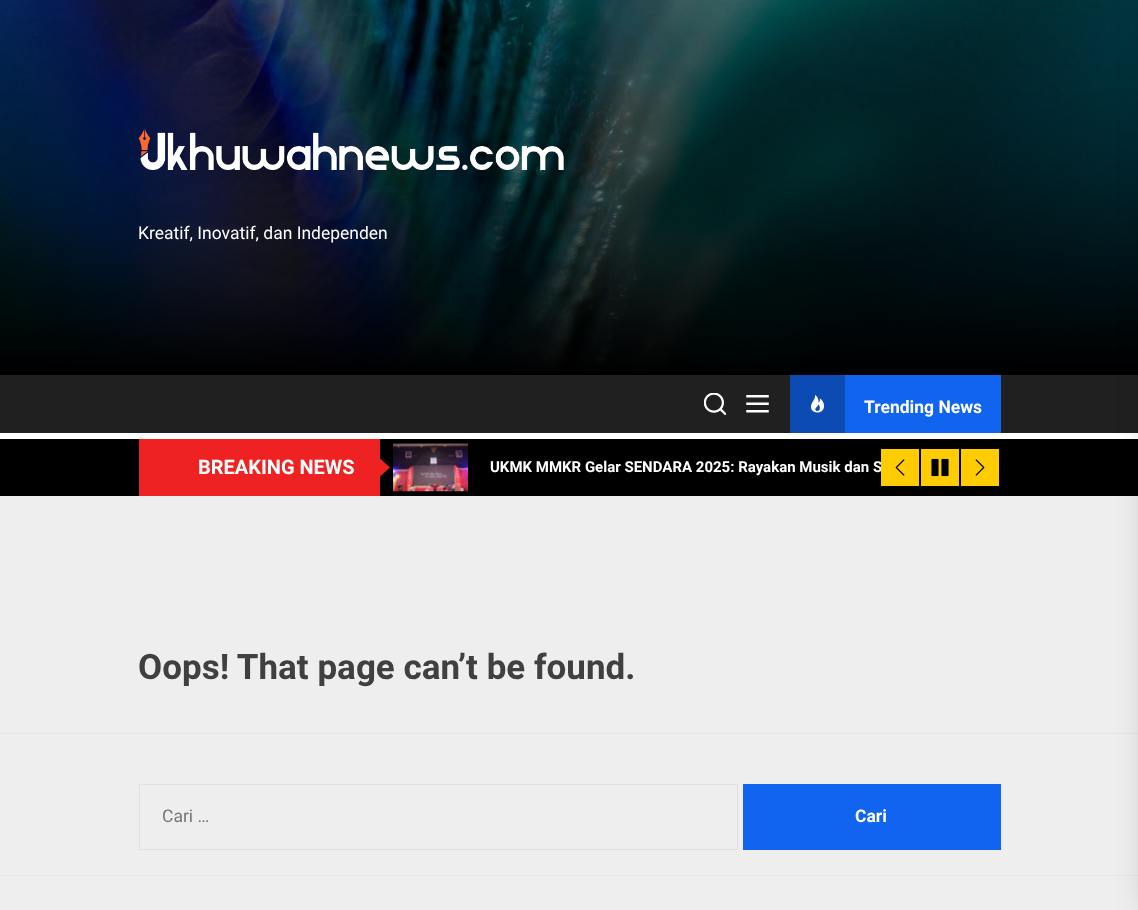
<svg xmlns="http://www.w3.org/2000/svg" width="1138" height="910">
	<defs>
		<clipPath id="clip1"><rect x="393" y="439" width="488" height="56" /></clipPath>
	</defs>
	<rect width="100%" height="100%" fill="#EEEEEE" />
	<image x="0" y="0" width="1138" height="375" href="assets/img1.png" />
	<image x="138" y="128" width="426" height="42" href="assets/img2.png" />
	<text x="138" y="239" font-family="Roboto" font-size="17.5" fill="#FFFFFF">Kreatif, Inovatif, dan Independen</text>
	<rect x="0" y="375" width="1138" height="58" fill="#202020" />
	<image x="704" y="393" width="22" height="22" href="assets/img3.png" />
	<image x="746" y="395" width="23" height="18" href="assets/img4.png" />
	<rect x="845" y="375" width="156" height="58" fill="#1164F0" />
	<rect x="790" y="375" width="55" height="58" fill="#0D4BB4" />
	<image x="810" y="395" width="14" height="18" href="assets/img5.png" />
	<text x="864" y="413" font-family="Roboto" font-size="17.5" font-weight="700" fill="#FFFFFF">Trending News</text>
	<rect x="0" y="433" width="1138" height="6" fill="#FFFFFF" />
	<rect x="0" y="439" width="1138" height="57" fill="#000000" />
	<rect x="139" y="439" width="241" height="57" fill="#EE2222" />
	<text x="198" y="474" font-family="Roboto" font-size="20" font-weight="700" fill="#FFFFFF">BREAKING NEWS</text>
	<path d="M379 477.5V457.5L390 467.5Z" fill="#EE2222" />
	<image x="393" y="443" width="75" height="49" href="assets/img6.png" />
	<g clip-path="url(#clip1)">
		<text x="490" y="472" font-family="Roboto" font-size="15" font-weight="700" fill="#FFFFFF">UKMK MMKR Gelar SENDARA 2025: Rayakan Musik dan S</text>
	</g>
	<rect x="881" y="449" width="38" height="37" fill="#FFCC00" />
	<image x="895" y="459" width="10" height="17" href="assets/img7.png" />
	<rect x="921" y="449" width="38" height="37" fill="#FFCC00" />
	<image x="931" y="458" width="18" height="19" href="assets/img8.png" />
	<rect x="961" y="449" width="38" height="37" fill="#FFCC00" />
	<image x="975" y="459" width="10" height="17" href="assets/img9.png" />
	<rect x="0" y="733" width="1138" height="1" fill="#E5E5E5" />
	<rect x="0" y="875" width="1138" height="1" fill="#E5E5E5" />
	<rect x="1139" y="0" width="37" height="910" fill="#000000" fill-opacity="0.1" filter="blur(12.5px)" />
	<text x="138" y="679" font-family="Roboto" font-size="35" font-weight="700" fill="#404040">Oops! That page can’t be found.</text>
	<rect x="139.5" y="784.5" width="598" height="65" fill="none" stroke="#E1E1E3" />
	<text x="162" y="822" font-family="Roboto" font-size="17.5" fill="#757575">Cari …</text>
	<rect x="743" y="784" width="258" height="66" fill="#1164F0" />
	<text x="855" y="822" font-family="Roboto" font-size="17.5" font-weight="700" fill="#FFFFFF">Cari</text>
</svg>
